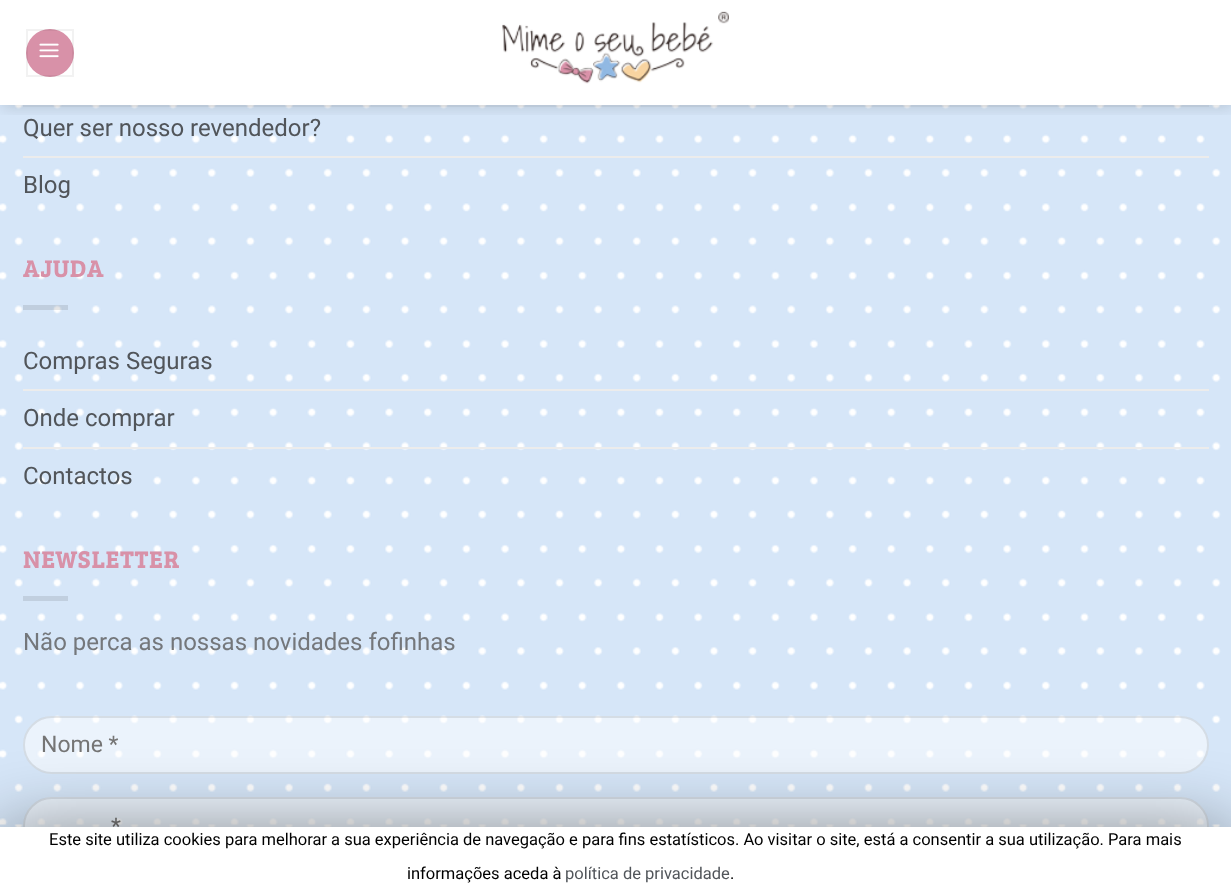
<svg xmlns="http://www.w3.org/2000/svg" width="1231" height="893">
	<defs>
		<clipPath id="clip1"><rect x="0" y="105" width="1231" height="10" /></clipPath>
	</defs>
	<rect width="100%" height="100%" fill="#FFFFFF" />
	<image x="0" y="0" width="1231" height="827" href="assets/img3.png" />
	<rect x="23" y="41" width="1186" height="2" fill="#ECECEC" />
	<rect x="23" y="98" width="1186" height="2" fill="#ECECEC" />
	<g clip-path="url(#clip1)">
		<rect x="2" y="2" width="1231" height="105" fill="#000000" fill-opacity="0.15" filter="blur(7.5px)" />
	</g>
	<rect x="0" y="0" width="1231" height="105" fill="#FFFFFF" fill-opacity="0.9" />
	<rect x="0" y="0" width="1231" height="105" fill="#FFFFFF" fill-opacity="0.9" />
	<circle cx="50" cy="53" r="24" fill="#D891A8" />
	<rect x="27" y="30" width="46" height="46" fill="none" stroke="#000000" stroke-opacity="0.05" stroke-width="2" />
	<image x="39" y="43" width="20" height="15" href="assets/img1.png" />
	<image x="502" y="11" width="227" height="73" href="assets/img2.png" />
	<rect x="23" y="105" width="1186" height="2" fill="#74777B" fill-opacity="0.1" />
	<text x="23" y="136" font-family="Roboto" font-size="24" fill="#51555A">Quer ser nosso revendedor?</text>
	<rect x="23" y="156" width="1186" height="2" fill="#ECECEC" />
	<text x="23" y="193" font-family="Roboto" font-size="24" fill="#51555A">Blog</text>
	<text x="23" y="277" font-family="Bree Serif" font-size="24" font-weight="700" letter-spacing="1.25" fill="#D891A8">AJUDA</text>
	<rect x="23" y="305" width="45" height="5" fill="#000000" fill-opacity="0.1" />
	<text x="23" y="369" font-family="Roboto" font-size="24" fill="#51555A">Compras Seguras</text>
	<rect x="23" y="389" width="1186" height="2" fill="#ECECEC" />
	<text x="23" y="426" font-family="Roboto" font-size="24" fill="#51555A">Onde comprar</text>
	<rect x="23" y="447" width="1186" height="2" fill="#ECECEC" />
	<text x="23" y="484" font-family="Roboto" font-size="24" fill="#51555A">Contactos</text>
	<text x="23" y="568" font-family="Bree Serif" font-size="24" font-weight="700" letter-spacing="1.25" fill="#D891A8">NEWSLETTER</text>
	<rect x="23" y="596" width="45" height="5" fill="#C1CFDF" />
	<text x="23" y="650" font-family="Roboto" font-size="24" fill="#74777B">Não perca as nossas novidades fofinhas</text>
	<rect x="23" y="716" width="1186" height="58" rx="29" fill="#FFFFFF" fill-opacity="0.5" />
	<rect x="24" y="717" width="1184" height="56" rx="28" fill="none" stroke="#000000" stroke-opacity="0.09" stroke-width="2" />
	<text x="41" y="752" font-family="Roboto" font-size="23" fill="#757575">Nome *</text>
	<rect x="23" y="797" width="1186" height="58" rx="29" fill="#FFFFFF" fill-opacity="0.5" />
	<rect x="24" y="798" width="1184" height="56" rx="28" fill="none" stroke="#000000" stroke-opacity="0.09" stroke-width="2" />
	<text x="111" y="834" font-family="Roboto" font-size="23" fill="#757575">*</text>
	<rect x="0" y="834" width="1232" height="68" fill="#000000" fill-opacity="0.5" filter="blur(37.5px)" />
	<rect x="0" y="827" width="1231" height="66" fill="#FFFFFF" />
	<g font-family="Roboto" font-size="16.5" fill="#000000">
		<text x="49" y="845">Este site utiliza cookies para melhorar a sua experiência de navegação e para fins estatísticos. Ao visitar o site, está a consentir a sua utilização. Para mais</text>
		<text x="407" y="879">informações aceda à</text>
	</g>
	<text x="565" y="879" font-family="Roboto" font-size="16.5" fill="#51555A">política de privacidade</text>
	<text x="730" y="879" font-family="Roboto" font-size="16.5" fill="#000000">.</text>
</svg>
